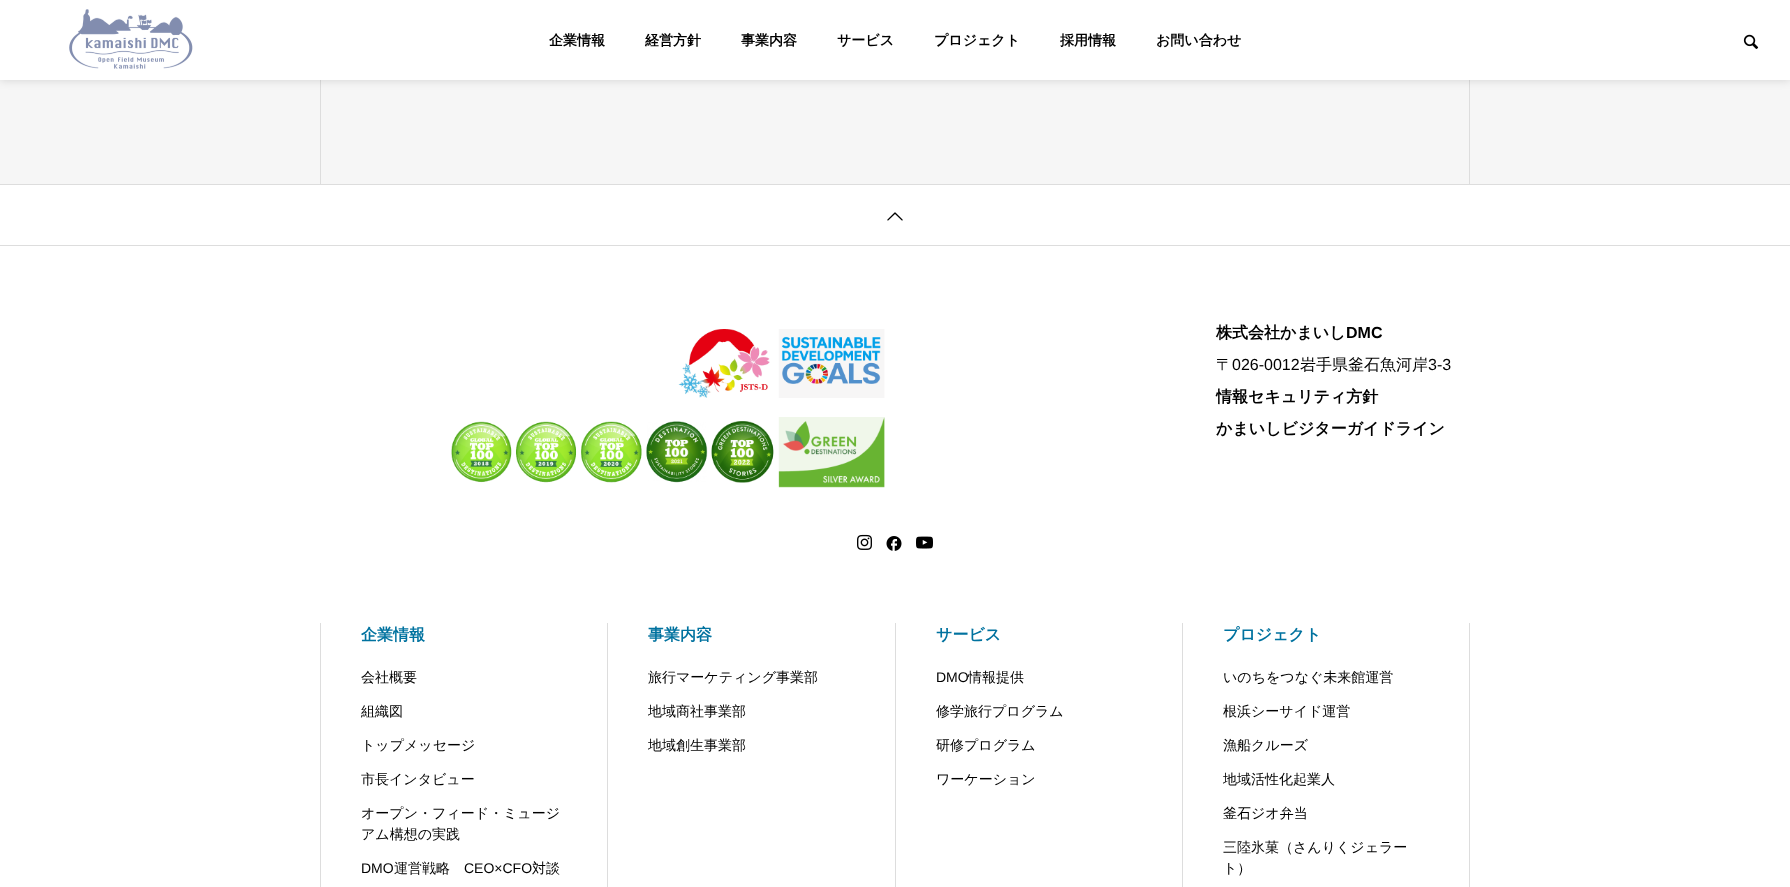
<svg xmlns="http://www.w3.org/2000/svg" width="1790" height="887">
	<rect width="100%" height="100%" fill="#FFFFFF" />
	<rect x="0" y="80" width="1790" height="104" fill="#F6F6F6" />
	<rect x="1469" y="80" width="1" height="104" fill="#DDDDDD" />
	<rect x="320" y="80" width="1" height="104" fill="#DDDDDD" />
	<rect x="0" y="0" width="1790" height="80" fill="#000000" fill-opacity="0.15" filter="blur(5px)" />
	<rect x="0" y="0" width="1790" height="80" fill="#FFFFFF" />
	<image x="69" y="9" width="124" height="60" href="assets/img1.png" />
	<g font-family="WenQuanYi Zen Hei" font-size="14" font-weight="700" fill="#000000">
		<text x="549" y="45">企業情報</text>
		<text x="645" y="45">経営方針</text>
		<text x="741" y="45">事業内容</text>
		<text x="837" y="45">サービス</text>
		<text x="934" y="45">プロジェクト</text>
		<text x="1060" y="45">採用情報</text>
		<text x="1156" y="45">お問い合わせ</text>
	</g>
	<image x="1743" y="34" width="16" height="15" href="assets/img2.png" />
	<rect x="0" y="184" width="1790" height="1" fill="#DDDDDD" />
	<image x="887" y="212" width="16" height="9" href="assets/img3.png" />
	<rect x="0" y="245" width="1790" height="1" fill="#DDDDDD" />
	<image x="451" y="329" width="434" height="159" href="assets/img4.png" />
	<text x="1216" y="338" font-family="WenQuanYi Zen Hei" font-size="16" font-weight="700" fill="#000000">株式会社かまいし</text>
	<text x="1346" y="338" font-family="Liberation Sans" font-size="16" font-weight="700" fill="#000000">DMC</text>
	<text x="1216" y="370" font-family="WenQuanYi Zen Hei" font-size="16" font-weight="500" fill="#000000">〒</text>
	<text x="1232" y="370" font-family="Liberation Sans" font-size="16" fill="#000000">026-0012</text>
	<text x="1300" y="370" font-family="WenQuanYi Zen Hei" font-size="16" font-weight="500" fill="#000000">岩手県釜石魚河岸</text>
	<text x="1428" y="370" font-family="Liberation Sans" font-size="16" fill="#000000">3-3</text>
	<g font-family="WenQuanYi Zen Hei" font-size="16" font-weight="700" fill="#000000">
		<text x="1216" y="402">情報セキュリティ方針</text>
		<text x="1216" y="434">かまいしビジターガイドライン</text>
	</g>
	<image x="857" y="534" width="15" height="16" href="assets/img5.png" />
	<image x="886" y="536" width="16" height="15" href="assets/img6.png" />
	<image x="916" y="536" width="17" height="13" href="assets/img7.png" />
	<rect x="320" y="623" width="1" height="264" fill="#DDDDDD" />
	<text x="361" y="640" font-family="WenQuanYi Zen Hei" font-size="16" font-weight="700" fill="#00729F">企業情報</text>
	<g font-family="WenQuanYi Zen Hei" font-size="14" font-weight="500" fill="#000000">
		<text x="361" y="682">会社概要</text>
		<text x="361" y="716">組織図</text>
		<text x="361" y="750">トップメッセージ</text>
		<text x="361" y="784">市長インタビュー</text>
		<text x="361" y="818">オープン・フィード・ミュージ</text>
		<text x="361" y="839">アム構想の実践</text>
	</g>
	<text x="361" y="873" font-family="Liberation Sans" font-size="14" fill="#000000">DMO</text>
	<text x="394" y="873" font-family="WenQuanYi Zen Hei" font-size="14" font-weight="500" fill="#000000">運営戦略</text>
	<text x="464" y="873" font-family="Liberation Sans" font-size="14" fill="#000000">CEO×CFO</text>
	<text x="532" y="873" font-family="WenQuanYi Zen Hei" font-size="14" font-weight="500" fill="#000000">対談</text>
	<rect x="607" y="623" width="1" height="264" fill="#DDDDDD" />
	<text x="648" y="640" font-family="WenQuanYi Zen Hei" font-size="16" font-weight="700" fill="#00729F">事業内容</text>
	<g font-family="WenQuanYi Zen Hei" font-size="14" font-weight="500" fill="#000000">
		<text x="648" y="682">旅行マーケティング事業部</text>
		<text x="648" y="716">地域商社事業部</text>
		<text x="648" y="750">地域創生事業部</text>
	</g>
	<rect x="895" y="623" width="1" height="264" fill="#DDDDDD" />
	<text x="936" y="640" font-family="WenQuanYi Zen Hei" font-size="16" font-weight="700" fill="#00729F">サービス</text>
	<text x="936" y="682" font-family="Liberation Sans" font-size="14" fill="#000000">DMO</text>
	<g font-family="WenQuanYi Zen Hei" font-size="14" font-weight="500" fill="#000000">
		<text x="968" y="682">情報提供</text>
		<text x="936" y="716">修学旅行プログラム</text>
		<text x="936" y="750">研修プログラム</text>
		<text x="936" y="784">ワーケーション</text>
	</g>
	<rect x="1469" y="623" width="1" height="264" fill="#DDDDDD" />
	<rect x="1182" y="623" width="1" height="264" fill="#DDDDDD" />
	<text x="1223" y="640" font-family="WenQuanYi Zen Hei" font-size="16" font-weight="700" fill="#00729F">プロジェクト</text>
	<g font-family="WenQuanYi Zen Hei" font-size="14" font-weight="500" fill="#000000">
		<text x="1223" y="682">いのちをつなぐ未来館運営</text>
		<text x="1223" y="716">根浜シーサイド運営</text>
		<text x="1223" y="750">漁船クルーズ</text>
		<text x="1223" y="784">地域活性化起業人</text>
		<text x="1223" y="818">釜石ジオ弁当</text>
		<text x="1223" y="852">三陸氷菓（さんりくジェラー</text>
		<text x="1223" y="873">ト）</text>
	</g>
</svg>
